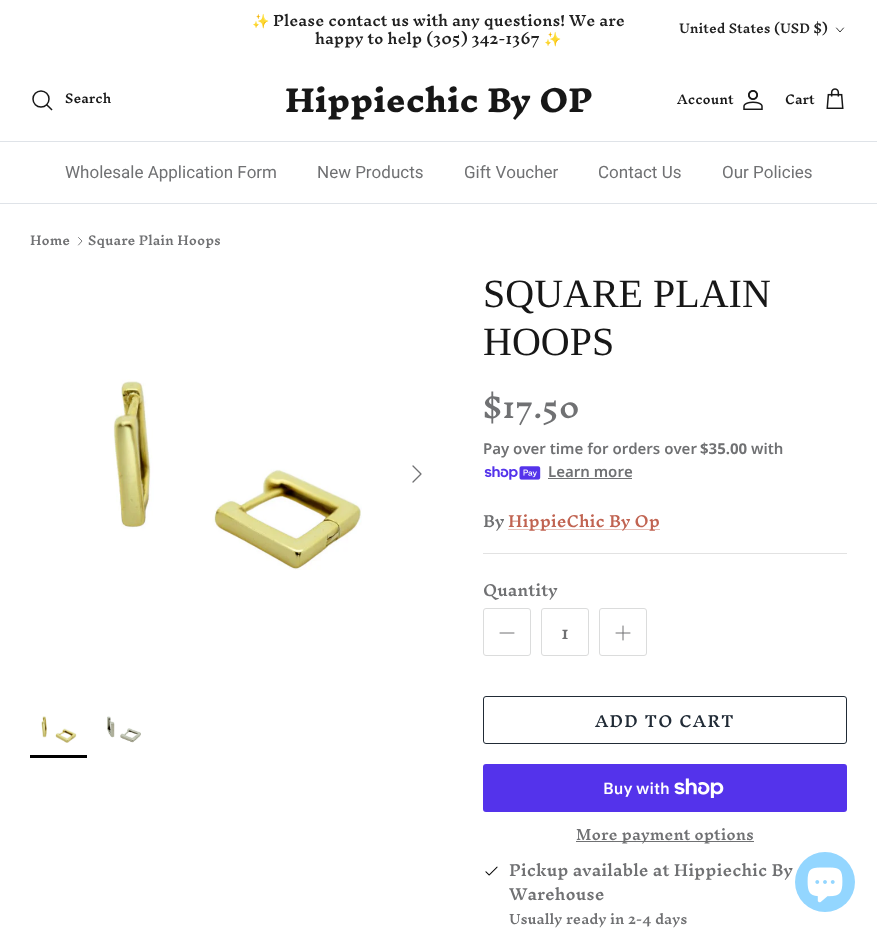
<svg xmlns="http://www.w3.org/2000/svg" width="877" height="933">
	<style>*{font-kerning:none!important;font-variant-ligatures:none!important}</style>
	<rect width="100%" height="100%" fill="#FFFFFF" />
	<text x="252" y="26" font-family="Noto Color Emoji" font-size="14" font-weight="700" fill="#212121">✨</text>
	<g font-family="Inknut Antiqua" font-size="14" font-weight="600" fill="#212121">
		<text x="273" y="26">Please contact us with any questions! We are</text>
		<text x="315" y="44">happy to help (305) 342-1367</text>
	</g>
	<text x="544" y="44" font-family="Noto Color Emoji" font-size="14" font-weight="700" fill="#212121">✨</text>
	<text x="679" y="33" font-family="Inknut Antiqua" font-size="12" font-weight="600" fill="#212121">United States (USD $)</text>
	<path d="M836.5 28L840 32L843.5 28" fill="none" stroke="#212121" stroke-width="0.9" stroke-linecap="round" stroke-linejoin="round" />
	<rect x="0" y="141" width="877" height="1" fill="#DFE3E8" />
	<circle cx="41" cy="99" r="8" fill="none" stroke="#171717" stroke-width="1.5" />
	<text x="65" y="103" font-family="Inknut Antiqua" font-size="12" font-weight="600" fill="#171717">Search</text>
	<path d="M47 105L51.5 109.5" fill="none" stroke="#171717" stroke-width="1.5" stroke-linecap="square" />
	<text x="285" y="112" font-family="Inknut Antiqua" font-size="30" font-weight="800" fill="#171717">Hippiechic By OP</text>
	<text x="677" y="104" font-family="Inknut Antiqua" font-size="12" font-weight="600" fill="#171717">Account</text>
	<image x="743" y="90" width="20" height="20" href="assets/img1.png" />
	<text x="785" y="104" font-family="Inknut Antiqua" font-size="12" font-weight="600" fill="#171717">Cart</text>
	<image x="826" y="88" width="18" height="21" href="assets/img2.png" />
	<rect x="0" y="203" width="877" height="1" fill="#DFE3E8" />
	<g font-family="Roboto" font-size="17" fill="#707173">
		<text x="65" y="178">Wholesale Application Form</text>
		<text x="317" y="178">New Products</text>
		<text x="464" y="178">Gift Voucher</text>
		<text x="598" y="178">Contact Us</text>
		<text x="722" y="178">Our Policies</text>
	</g>
	<text x="30" y="245" font-family="Inknut Antiqua" font-size="12" font-weight="600" fill="#707173">Home</text>
	<path d="M78.5 245L82 241L78.5 237.5" fill="none" stroke="#707173" stroke-width="0.9" stroke-linecap="round" stroke-linejoin="round" />
	<text x="88" y="245" font-family="Inknut Antiqua" font-size="12" font-weight="600" fill="#707173">Square Plain Hoops</text>
	<image x="113" y="379" width="249" height="191" href="assets/img3.png" />
	<path d="M413 482L421 474L413 466" fill="none" stroke="#707173" stroke-width="1.3" stroke-linecap="round" stroke-linejoin="round" />
	<image x="41" y="716" width="36" height="27" href="assets/img4.png" />
	<rect x="30" y="755" width="57" height="3" fill="#000000" />
	<image x="107" y="716" width="34" height="27" href="assets/img5.png" />
	<g font-family="Liberation Serif" font-size="40" fill="#171717">
		<text x="483" y="307">SQUARE PLAIN</text>
		<text x="483" y="355">HOOPS</text>
	</g>
	<text x="483" y="418" font-family="Inknut Antiqua" font-size="27" font-weight="600" fill="#707173">$17.50</text>
	<text x="483" y="454" font-family="Noto Sans" font-size="15" font-weight="600" fill="#707173">Pay over time for orders over</text>
	<text x="700" y="454" font-family="Noto Sans" font-size="15" font-weight="700" fill="#707173">$35.00</text>
	<text x="751" y="454" font-family="Noto Sans" font-size="15" font-weight="600" fill="#707173">with</text>
	<image x="484" y="466" width="57" height="14" href="assets/img6.png" />
	<text x="548" y="477" font-family="Noto Sans" font-size="15" font-weight="600" fill="#707173">Learn more</text>
	<rect x="548" y="478" width="84" height="1" fill="#707173" />
	<text x="483" y="527" font-family="Inknut Antiqua" font-size="15" font-weight="600" fill="#707173">By</text>
	<rect x="508" y="529" width="152" height="1" fill="#E6C1BA" />
	<text x="508" y="527" font-family="Inknut Antiqua" font-size="15" font-weight="600" fill="#C16452">HippieChic By Op</text>
	<rect x="483" y="553" width="364" height="1" fill="#E2E2E2" />
	<text x="483" y="596" font-family="Inknut Antiqua" font-size="15" font-weight="600" fill="#707173">Quantity</text>
	<rect x="483.5" y="608.5" width="47" height="47" rx="2.5" fill="none" stroke="#DBDCDC" />
	<path d="M500 633H514" fill="none" stroke="#707173" stroke-linecap="round" stroke-linejoin="round" />
	<rect x="541.5" y="608.5" width="47" height="47" rx="2.5" fill="none" stroke="#DBDCDC" />
	<text x="561" y="639" font-family="Inknut Antiqua" font-size="16" font-weight="600" fill="#707173">1</text>
	<rect x="599.5" y="608.5" width="47" height="47" rx="2.5" fill="none" stroke="#DBDCDC" />
	<path d="M623 626V640M616 633H630" fill="none" stroke="#707173" stroke-linecap="round" stroke-linejoin="round" />
	<rect x="483.5" y="696.5" width="363" height="47" rx="2.5" fill="none" stroke="#212B36" />
	<text x="595" y="727" font-family="Inknut Antiqua" font-size="15" font-weight="600" letter-spacing="1.25" fill="#212B36">ADD TO CART</text>
	<rect x="483" y="764" width="364" height="48" rx="3" fill="#5433EB" />
	<text x="603" y="794" font-family="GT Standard" font-size="16" font-weight="600" fill="#FFFFFF">Buy with</text>
	<image x="674" y="778" width="50" height="20" href="assets/img7.png" />
	<rect x="576" y="841" width="178" height="1" fill="#707173" />
	<text x="576" y="840" font-family="Inknut Antiqua" font-size="14" font-weight="600" fill="#707173">More payment options</text>
	<image x="485" y="866" width="13" height="10" href="assets/img8.png" />
	<g font-family="Inknut Antiqua" font-size="15" font-weight="600" fill="#707173">
		<text x="509" y="876">Pickup available at Hippiechic By</text>
		<text x="509" y="900">Warehouse</text>
	</g>
	<text x="509" y="924" font-family="Inknut Antiqua" font-size="12.75" font-weight="600" fill="#707173">Usually ready in 2-4 days</text>
	<circle cx="825" cy="882" r="30" fill="#93D6FF" />
	<image x="807" y="867" width="36" height="36" href="assets/img9.png" />
</svg>
